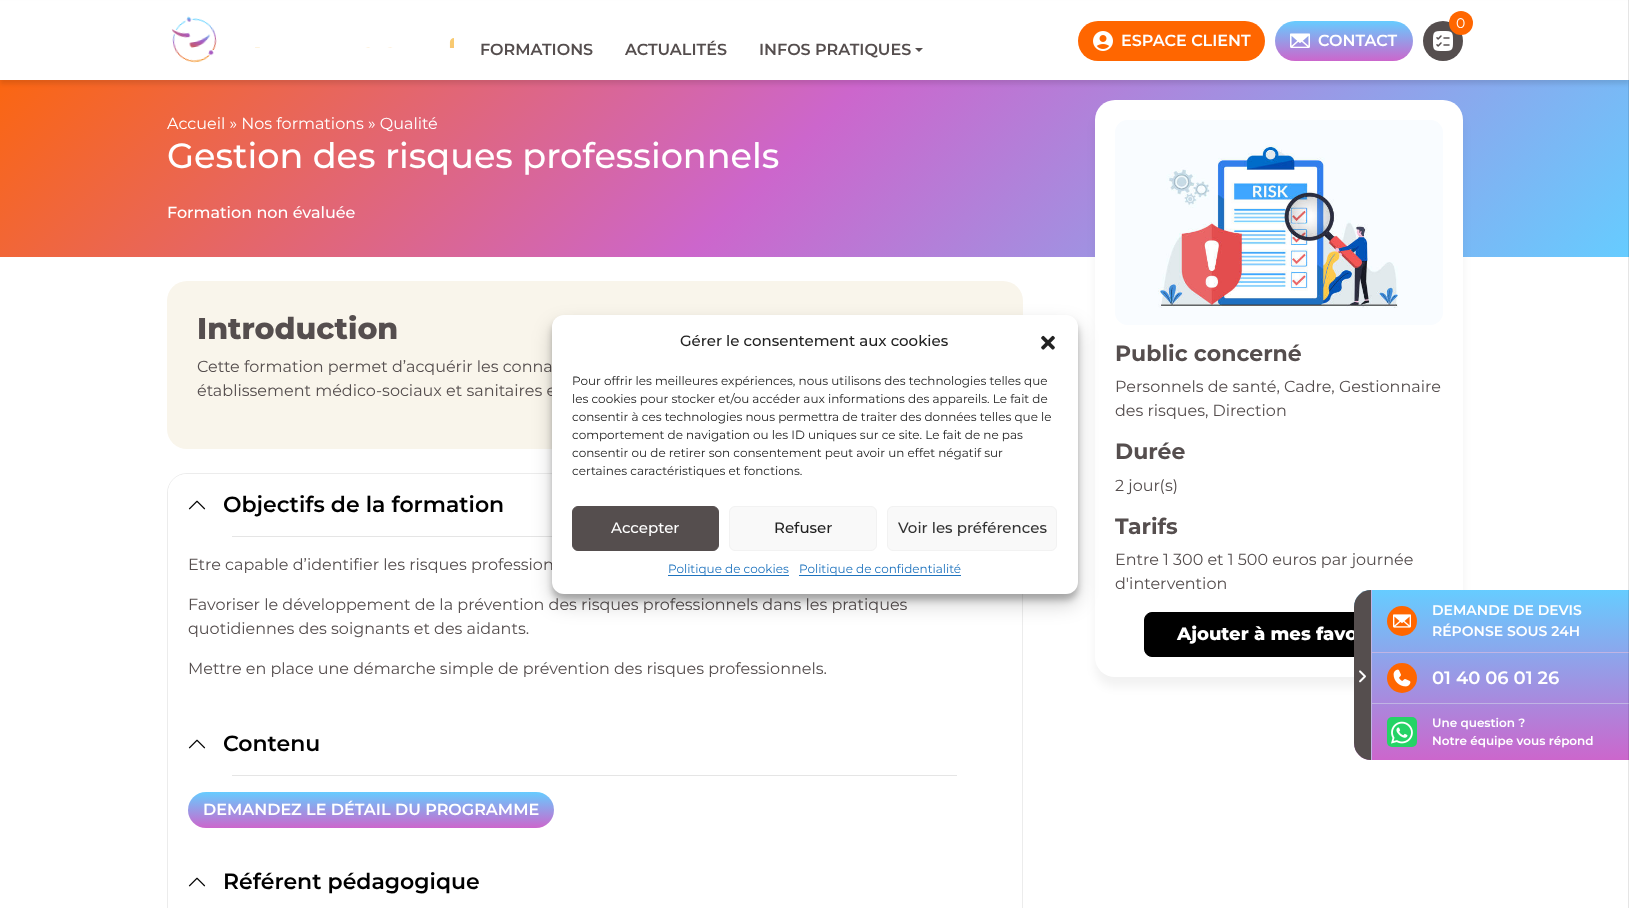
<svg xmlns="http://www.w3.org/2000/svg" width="1629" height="908">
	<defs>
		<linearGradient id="g1" gradientUnits="userSpaceOnUse" x1="343" y1="-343" x2="1286" y2="600"><stop offset="0" stop-color="#FF6600" /><stop offset="0.5" stop-color="#CC66CC" /><stop offset="1" stop-color="#66CCFF" /></linearGradient>
		<linearGradient id="g2" gradientUnits="userSpaceOnUse" x1="1344" y1="61" x2="1344" y2="21"><stop offset="0" stop-color="#CC66CC" /><stop offset="1" stop-color="#66CCFF" /></linearGradient>
		<linearGradient id="g3" gradientUnits="userSpaceOnUse" x1="1517" y1="760" x2="1517" y2="590"><stop offset="0" stop-color="#CC66CC" /><stop offset="1" stop-color="#66CCFF" /></linearGradient>
		<linearGradient id="g4" gradientUnits="userSpaceOnUse" x1="371" y1="828" x2="371" y2="792"><stop offset="0" stop-color="#CC66CC" /><stop offset="1" stop-color="#66CCFF" /></linearGradient>
	</defs>
	<rect width="100%" height="100%" fill="#FFFFFF" />
	<rect x="0" y="80" width="1629" height="177" fill="url(#g1)" />
	<rect x="0" y="4" width="1629" height="80" fill="#000000" fill-opacity="0.1" filter="blur(2px)" />
	<rect x="0" y="1" width="1629" height="79" fill="#FFFFFF" />
	<image x="171" y="16" width="46" height="47" href="assets/img1.png" />
	<image x="255" y="38" width="199" height="10" href="assets/img2.png" />
	<circle cx="1443" cy="41" r="20" fill="#554E4E" />
	<image x="1433" y="31" width="20" height="20" href="assets/img3.png" />
	<circle cx="1461" cy="23" r="12" fill="#FF6600" />
	<text x="1456" y="28" font-family="Montserrat" font-size="14" fill="#FFFFFF">0</text>
	<rect x="1078" y="21" width="187" height="40" rx="20" fill="#FF6600" />
	<image x="1093" y="31" width="20" height="20" href="assets/img4.png" />
	<text x="1121" y="46" font-family="Montserrat" font-size="16" font-weight="600" fill="#FFFFFF">ESPACE CLIENT</text>
	<rect x="1275" y="21" width="138" height="40" rx="20" fill="url(#g2)" />
	<image x="1290" y="33" width="20" height="15" href="assets/img5.png" />
	<text x="1318" y="46" font-family="Montserrat" font-size="16" font-weight="600" fill="#FFFFFF">CONTACT</text>
	<g font-family="Montserrat" font-size="16" font-weight="600" fill="#554E4E">
		<text x="480" y="55">FORMATIONS</text>
		<text x="625" y="55">ACTUALITÉS</text>
		<text x="759" y="55">INFOS PRATIQUES</text>
	</g>
	<path d="M915 48H923L919 52Z" fill="#554E4E" />
	<rect x="1095" y="110" width="368" height="577" rx="20" fill="#000000" fill-opacity="0.05" filter="blur(5px)" />
	<rect x="1095" y="100" width="368" height="577" rx="20" fill="#FFFFFF" />
	<rect x="1144.5" y="612.5" width="268" height="44" rx="7.5" fill="#000000" stroke="#000000" />
	<text x="1177" y="640" font-family="Montserrat" font-size="18" font-weight="800" fill="#FFFFFF">Ajouter à mes favo</text>
	<path d="M1371 590H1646V760H1371C1361.5 760 1354 752.5 1354 743V607C1354 597.5 1361.5 590 1371 590Z" fill="url(#g3)" />
	<rect x="1372" y="652" width="257" height="1" fill="#C0B4E4" />
	<rect x="1372" y="703" width="257" height="1" fill="#C0B4E4" />
	<rect x="1628.5" y="-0.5" width="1" height="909" fill="none" stroke="#000000" stroke-opacity="0.1" />
	<text x="167" y="129" font-family="Montserrat" font-size="16" fill="#FFFFFF">Accueil » Nos formations » Qualité</text>
	<text x="167" y="168" font-family="Montserrat" font-size="35" font-weight="500" fill="#FFFFFF">Gestion des risques professionnels</text>
	<text x="167" y="218" font-family="Montserrat" font-size="16" font-weight="500" fill="#FFFFFF">Formation non évaluée</text>
	<rect x="167" y="281" width="856" height="168" rx="20" fill="#F9F5EB" />
	<text x="197" y="339" font-family="Montserrat" font-size="30" font-weight="800" fill="#554E4E">Introduction</text>
	<g font-family="Montserrat" font-size="16" fill="#554E4E">
		<text x="197" y="372">Cette formation permet d’acquérir les conna</text>
		<text x="197" y="396">établissement médico-sociaux et sanitaires e</text>
	</g>
	<rect x="167.5" y="473.5" width="855" height="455" rx="19.5" fill="none" stroke="#ECECEC" />
	<path d="M187 474H1003C1013.5 474 1022 482.5 1022 493V713H168V493C168 482.5 176.5 474 187 474Z" fill="#FFFFFF" />
	<image x="188" y="500" width="18" height="10" href="assets/img6.png" />
	<text x="223" y="512" font-family="Montserrat" font-size="22" font-weight="600" fill="#000000">Objectifs de la formation</text>
	<rect x="232" y="536" width="320" height="1" fill="#E5E5E5" />
	<g font-family="Montserrat" font-size="16" fill="#554E4E">
		<text x="188" y="570">Etre capable d’identifier les risques profession</text>
		<text x="188" y="610">Favoriser le développement de la prévention des risques professionnels dans les pratiques</text>
		<text x="188" y="634">quotidiennes des soignants et des aidants.</text>
		<text x="188" y="674">Mettre en place une démarche simple de prévention des risques professionnels.</text>
	</g>
	<image x="188" y="739" width="18" height="10" href="assets/img6.png" />
	<text x="223" y="751" font-family="Montserrat" font-size="22" font-weight="600" fill="#000000">Contenu</text>
	<rect x="232" y="775" width="725" height="1" fill="#E5E5E5" />
	<rect x="188" y="792" width="366" height="36" rx="18" fill="url(#g4)" />
	<text x="203" y="815" font-family="Montserrat" font-size="16" font-weight="600" fill="#FFFFFF">DEMANDEZ LE DÉTAIL DU PROGRAMME</text>
	<image x="188" y="877" width="18" height="10" href="assets/img6.png" />
	<text x="223" y="889" font-family="Montserrat" font-size="22" font-weight="600" fill="#000000">Référent pédagogique</text>
	<image x="1115" y="120" width="328" height="205" href="assets/img7.png" />
	<text x="1115" y="361" font-family="Montserrat" font-size="22" font-weight="700" fill="#554E4E">Public concerné</text>
	<g font-family="Montserrat" font-size="16" fill="#554E4E">
		<text x="1115" y="392">Personnels de santé, Cadre, Gestionnaire</text>
		<text x="1115" y="416">des risques, Direction</text>
	</g>
	<text x="1115" y="459" font-family="Montserrat" font-size="22" font-weight="700" fill="#554E4E">Durée</text>
	<text x="1115" y="491" font-family="Montserrat" font-size="16" fill="#554E4E">2 jour(s)</text>
	<text x="1115" y="534" font-family="Montserrat" font-size="22" font-weight="700" fill="#554E4E">Tarifs</text>
	<g font-family="Montserrat" font-size="16" fill="#554E4E">
		<text x="1115" y="565">Entre 1 300 et 1 500 euros par journée</text>
		<text x="1115" y="589">d'intervention</text>
	</g>
	<rect x="552" y="321" width="526" height="279" rx="12" fill="#000000" fill-opacity="0.23" filter="blur(3px)" />
	<rect x="552" y="325" width="526" height="279" rx="12" fill="#000000" fill-opacity="0.19" filter="blur(10px)" />
	<rect x="552" y="315" width="526" height="279" rx="12" fill="#FFFFFF" />
	<text x="680" y="346" font-family="Montserrat" font-size="15" font-weight="500" fill="#222222">Gérer le consentement aux cookies</text>
	<image x="1041" y="335" width="14" height="15" href="assets/img8.png" />
	<g font-family="Montserrat" font-size="12" fill="#222222">
		<text x="572" y="385">Pour offrir les meilleures expériences, nous utilisons des technologies telles que</text>
		<text x="572" y="403">les cookies pour stocker et/ou accéder aux informations des appareils. Le fait de</text>
		<text x="572" y="421">consentir à ces technologies nous permettra de traiter des données telles que le</text>
		<text x="572" y="439">comportement de navigation ou les ID uniques sur ce site. Le fait de ne pas</text>
		<text x="572" y="457">consentir ou de retirer son consentement peut avoir un effet négatif sur</text>
		<text x="572" y="475">certaines caractéristiques et fonctions.</text>
	</g>
	<rect x="572.5" y="506.5" width="146" height="44" rx="5.5" fill="#554E4E" stroke="#554E4E" />
	<text x="611" y="533" font-family="Montserrat" font-size="15" font-weight="500" fill="#FFFFFF">Accepter</text>
	<rect x="729.5" y="506.5" width="147" height="44" rx="5.5" fill="#F9F9F9" stroke="#F2F2F2" />
	<text x="774" y="533" font-family="Montserrat" font-size="15" font-weight="500" fill="#222222">Refuser</text>
	<rect x="887.5" y="506.5" width="169" height="44" rx="5.5" fill="#F9F9F9" stroke="#F2F2F2" />
	<text x="898" y="533" font-family="Montserrat" font-size="15" font-weight="500" fill="#333333">Voir les préférences</text>
	<rect x="668" y="575" width="121" height="1" fill="#1E73BE" />
	<text x="668" y="573" font-family="Montserrat" font-size="12" fill="#1E73BE">Politique de cookies</text>
	<rect x="799" y="575" width="162" height="1" fill="#1E73BE" />
	<text x="799" y="573" font-family="Montserrat" font-size="12" fill="#1E73BE">Politique de confidentialité</text>
	<path d="M1371 590V760C1361.5 760 1354 752.5 1354 743V607C1354 597.5 1361.5 590 1371 590Z" fill="#554E4E" />
	<image x="1359" y="670" width="7" height="13" href="assets/img9.png" />
	<rect x="1371" y="590" width="1" height="170" fill="#C0B4E4" />
	<circle cx="1402" cy="621" r="15" fill="#FF6600" />
	<image x="1393" y="614" width="18" height="14" href="assets/img10.png" />
	<g font-family="Montserrat" font-size="14" font-weight="600" fill="#FFFFFF">
		<text x="1432" y="615">DEMANDE DE DEVIS</text>
		<text x="1432" y="636">RÉPONSE SOUS 24H</text>
	</g>
	<circle cx="1402" cy="678" r="15" fill="#FF6600" />
	<image x="1393" y="669" width="18" height="18" href="assets/img11.png" />
	<text x="1432" y="684" font-family="Montserrat" font-size="18" font-weight="600" fill="#FFFFFF">01 40 06 01 26</text>
	<rect x="1387" y="717" width="30" height="30" rx="5" fill="#25D366" />
	<image x="1391" y="721" width="22" height="23" href="assets/img12.png" />
	<g font-family="Montserrat" font-size="12" font-weight="600" fill="#FFFFFF">
		<text x="1432" y="727">Une question ?</text>
		<text x="1432" y="745">Notre équipe vous répond</text>
	</g>
</svg>
